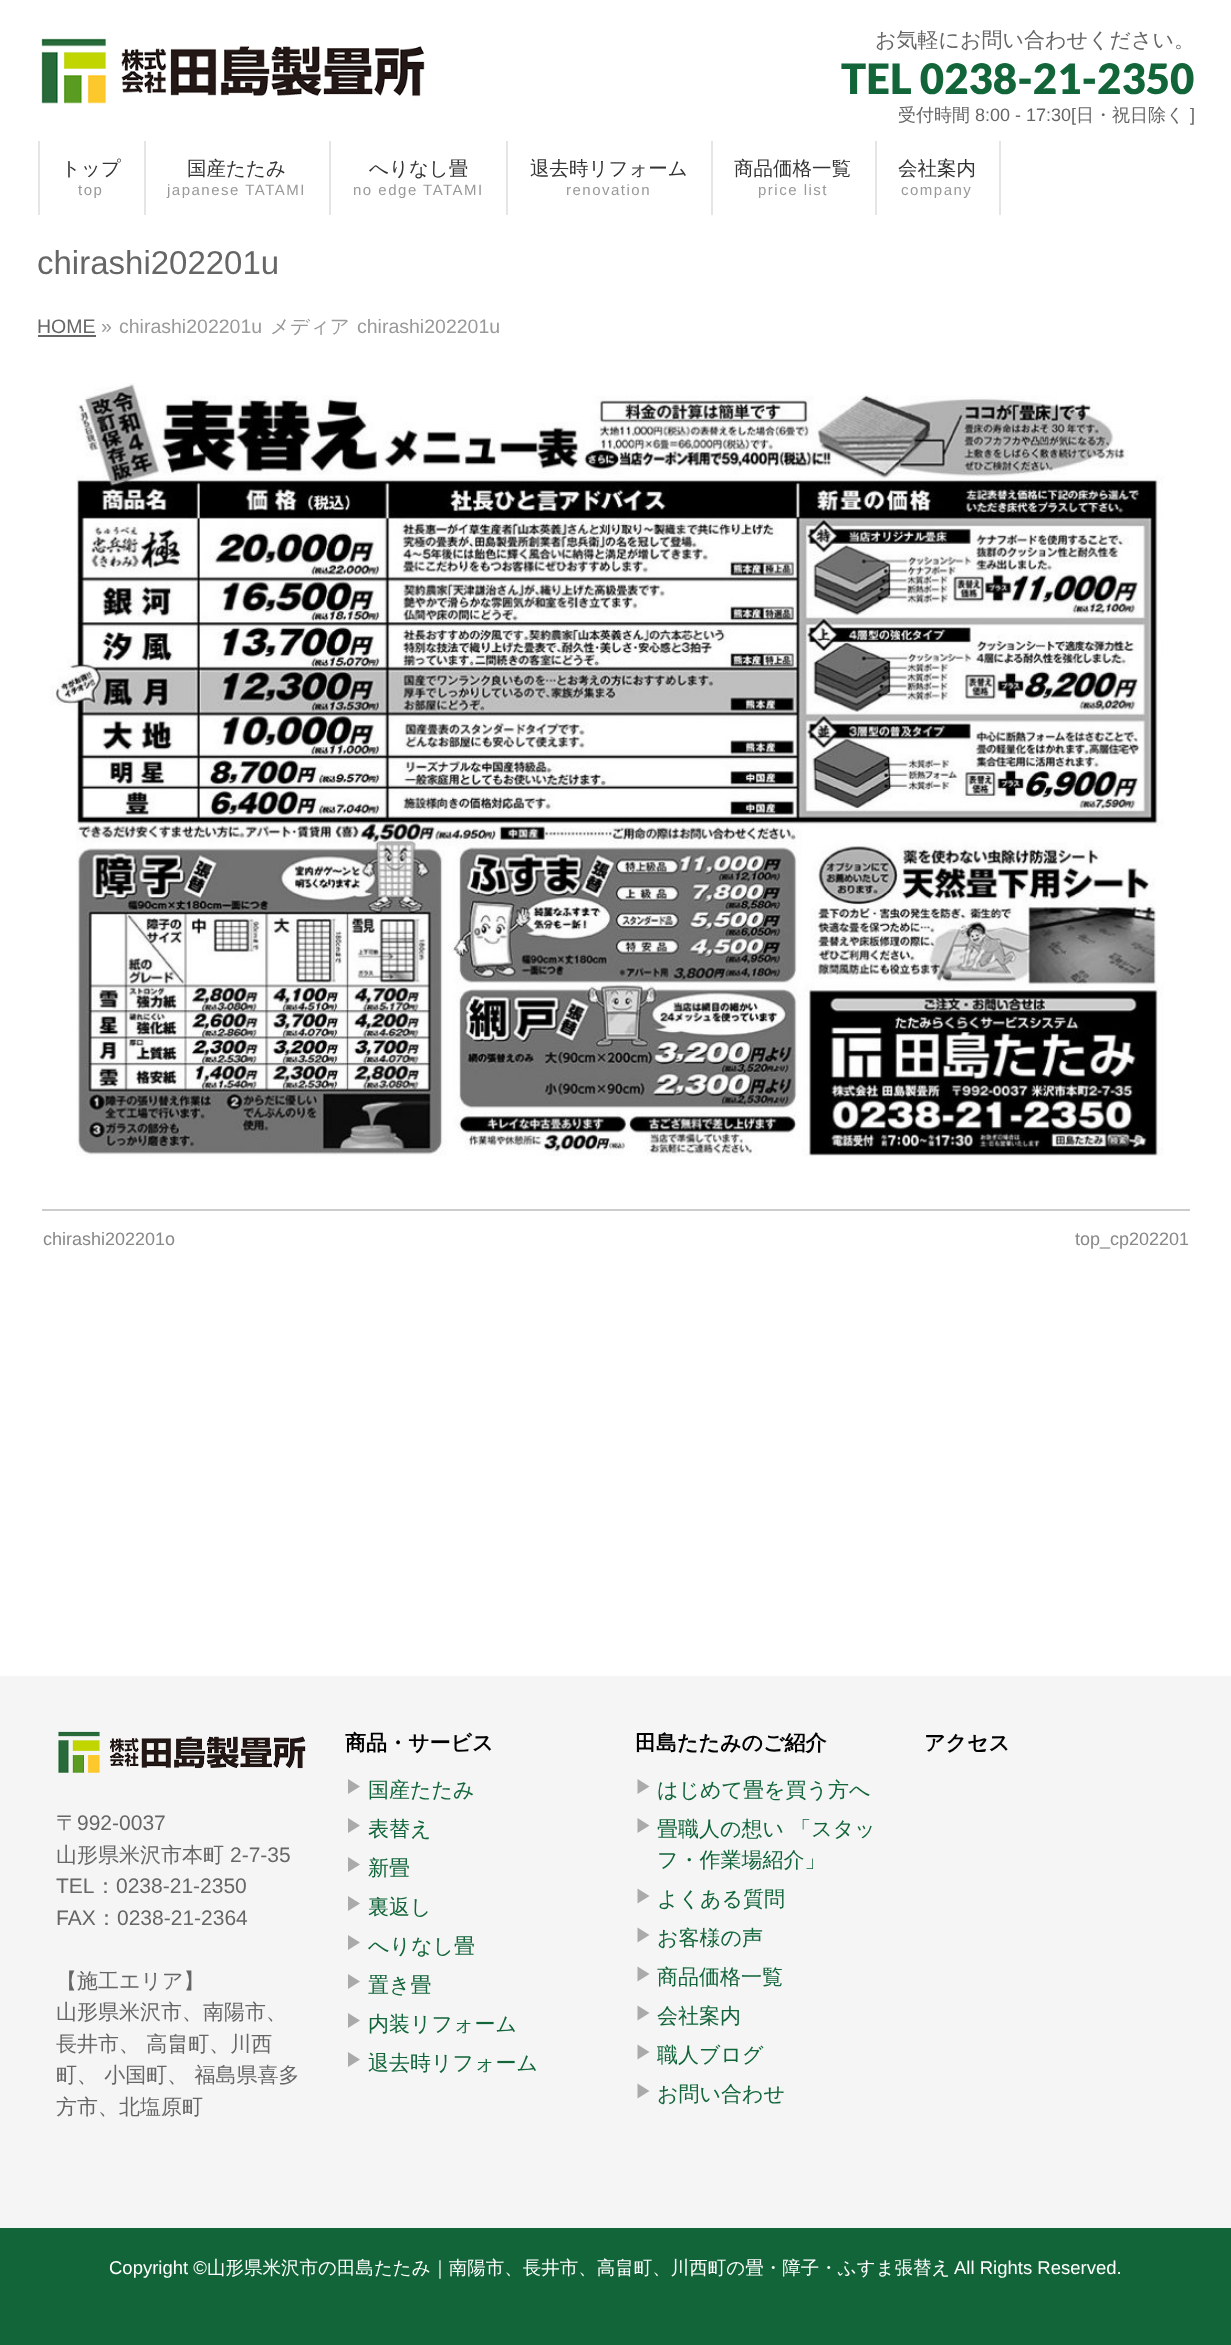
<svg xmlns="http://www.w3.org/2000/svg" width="1231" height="2345">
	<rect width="100%" height="100%" fill="#FFFFFF" />
	<image x="41" y="38" width="384" height="66" href="assets/img1.png" />
	<text x="875" y="47" font-family="WenQuanYi Zen Hei" font-size="21" font-weight="500" fill="#666666">お気軽にお問い合わせください。</text>
	<text x="841" y="94" font-family="Lato" font-size="42" font-weight="900" fill="#116539">TEL 0238-21-2350</text>
	<text x="898" y="121" font-family="WenQuanYi Zen Hei" font-size="18" font-weight="500" fill="#666666">受付時間</text>
	<text x="975" y="121" font-family="Liberation Sans" font-size="18" fill="#666666">8:00 - 17:30[</text>
	<text x="1076" y="121" font-family="WenQuanYi Zen Hei" font-size="18" font-weight="500" fill="#666666">日・祝日除く</text>
	<text x="1190" y="121" font-family="Liberation Sans" font-size="18" fill="#666666">]</text>
	<rect x="38" y="141" width="2" height="74" fill="#E5E5E5" />
	<rect x="144" y="141" width="2" height="74" fill="#E5E5E5" />
	<text x="61" y="175" font-family="WenQuanYi Zen Hei" font-size="19.5" font-weight="500" fill="#333333">トップ</text>
	<text x="78" y="195" font-family="Liberation Sans" font-size="15" letter-spacing="1.5" fill="#999999">top</text>
	<rect x="329" y="141" width="2" height="74" fill="#E5E5E5" />
	<text x="187" y="175" font-family="WenQuanYi Zen Hei" font-size="19.5" font-weight="500" fill="#333333">国産たたみ</text>
	<text x="167" y="195" font-family="Liberation Sans" font-size="15" letter-spacing="1.5" fill="#999999">japanese TATAMI</text>
	<rect x="506" y="141" width="2" height="74" fill="#E5E5E5" />
	<text x="369" y="175" font-family="WenQuanYi Zen Hei" font-size="19.5" font-weight="500" fill="#333333">へりなし畳</text>
	<text x="353" y="195" font-family="Liberation Sans" font-size="15" letter-spacing="1.5" fill="#999999">no edge TATAMI</text>
	<rect x="711" y="141" width="2" height="74" fill="#E5E5E5" />
	<text x="530" y="175" font-family="WenQuanYi Zen Hei" font-size="19.5" font-weight="500" fill="#333333">退去時リフォーム</text>
	<text x="566" y="195" font-family="Liberation Sans" font-size="15" letter-spacing="1.5" fill="#999999">renovation</text>
	<rect x="875" y="141" width="2" height="74" fill="#E5E5E5" />
	<text x="734" y="175" font-family="WenQuanYi Zen Hei" font-size="19.5" font-weight="500" fill="#333333">商品価格一覧</text>
	<text x="758" y="195" font-family="Liberation Sans" font-size="15" letter-spacing="1.5" fill="#999999">price list</text>
	<rect x="999" y="141" width="2" height="74" fill="#E5E5E5" />
	<text x="898" y="175" font-family="WenQuanYi Zen Hei" font-size="19.5" font-weight="500" fill="#333333">会社案内</text>
	<text x="901" y="195" font-family="Liberation Sans" font-size="15" letter-spacing="1.5" fill="#999999">company</text>
	<text x="37" y="274" font-family="Liberation Sans" font-size="33" fill="#666666">chirashi202201u</text>
	<text x="37" y="333" font-family="Liberation Sans" font-size="19.5" fill="#666666">HOME</text>
	<rect x="38" y="335" width="58" height="2" fill="#666666" />
	<g font-family="Liberation Sans" font-size="19.5" fill="#999999">
		<text x="101" y="333">»</text>
		<text x="119" y="333">chirashi202201u</text>
	</g>
	<text x="270" y="333" font-family="WenQuanYi Zen Hei" font-size="19.5" font-weight="500" fill="#999999">メディア</text>
	<text x="357" y="333" font-family="Liberation Sans" font-size="19.5" fill="#999999">chirashi202201u</text>
	<image x="49" y="383" width="1115" height="773" href="assets/img2.png" />
	<rect x="42" y="1209" width="1148" height="2" fill="#CCCCCC" />
	<g font-family="Liberation Sans" font-size="18" fill="#888888">
		<text x="43" y="1245">chirashi202201o</text>
		<text x="1075" y="1245">top_cp202201</text>
	</g>
	<rect x="0" y="1676" width="1231" height="552" fill="#F5F5F5" />
	<text x="345" y="1750" font-family="WenQuanYi Zen Hei" font-size="21" font-weight="700" fill="#000000">商品・サービス</text>
	<path d="M348 1794V1779L360 1786.5Z" fill="#AAAAAA" />
	<text x="368" y="1797" font-family="WenQuanYi Zen Hei" font-size="21" font-weight="500" fill="#116539">国産たたみ</text>
	<path d="M348 1833V1818L360 1825.5Z" fill="#AAAAAA" />
	<text x="368" y="1836" font-family="WenQuanYi Zen Hei" font-size="21" font-weight="500" fill="#116539">表替え</text>
	<path d="M348 1872V1857L360 1864.5Z" fill="#AAAAAA" />
	<text x="368" y="1875" font-family="WenQuanYi Zen Hei" font-size="21" font-weight="500" fill="#116539">新畳</text>
	<path d="M348 1911V1896L360 1903.5Z" fill="#AAAAAA" />
	<text x="368" y="1914" font-family="WenQuanYi Zen Hei" font-size="21" font-weight="500" fill="#116539">裏返し</text>
	<path d="M348 1950V1935L360 1942.5Z" fill="#AAAAAA" />
	<text x="368" y="1953" font-family="WenQuanYi Zen Hei" font-size="21" font-weight="500" fill="#116539">へりなし畳</text>
	<path d="M348 1989V1974L360 1981.5Z" fill="#AAAAAA" />
	<text x="368" y="1992" font-family="WenQuanYi Zen Hei" font-size="21" font-weight="500" fill="#116539">置き畳</text>
	<path d="M348 2028V2013L360 2020.5Z" fill="#AAAAAA" />
	<text x="368" y="2031" font-family="WenQuanYi Zen Hei" font-size="21" font-weight="500" fill="#116539">内装リフォーム</text>
	<path d="M348 2067V2052L360 2059.5Z" fill="#AAAAAA" />
	<text x="368" y="2070" font-family="WenQuanYi Zen Hei" font-size="21" font-weight="500" fill="#116539">退去時リフォーム</text>
	<text x="635" y="1750" font-family="WenQuanYi Zen Hei" font-size="21" font-weight="700" fill="#000000">田島たたみのご紹介</text>
	<path d="M637.5 1794V1779L649.5 1786.5Z" fill="#AAAAAA" />
	<text x="657" y="1797" font-family="WenQuanYi Zen Hei" font-size="21" font-weight="500" fill="#116539">はじめて畳を買う方へ</text>
	<path d="M637.5 1833V1818L649.5 1825.5Z" fill="#AAAAAA" />
	<g font-family="WenQuanYi Zen Hei" font-size="21" font-weight="500" fill="#116539">
		<text x="657" y="1836">畳職人の想い 「スタッ</text>
		<text x="657" y="1867">フ・作業場紹介」</text>
	</g>
	<path d="M637.5 1903.5V1888.5L649.5 1896Z" fill="#AAAAAA" />
	<text x="657" y="1906" font-family="WenQuanYi Zen Hei" font-size="21" font-weight="500" fill="#116539">よくある質問</text>
	<path d="M637.5 1942.5V1927.5L649.5 1935Z" fill="#AAAAAA" />
	<text x="657" y="1945" font-family="WenQuanYi Zen Hei" font-size="21" font-weight="500" fill="#116539">お客様の声</text>
	<path d="M637.5 1981.5V1966.5L649.5 1974Z" fill="#AAAAAA" />
	<text x="657" y="1984" font-family="WenQuanYi Zen Hei" font-size="21" font-weight="500" fill="#116539">商品価格一覧</text>
	<path d="M637.5 2020.5V2005.5L649.5 2013Z" fill="#AAAAAA" />
	<text x="657" y="2023" font-family="WenQuanYi Zen Hei" font-size="21" font-weight="500" fill="#116539">会社案内</text>
	<path d="M637.5 2059.5V2044.5L649.5 2052Z" fill="#AAAAAA" />
	<text x="657" y="2062" font-family="WenQuanYi Zen Hei" font-size="21" font-weight="500" fill="#116539">職人ブログ</text>
	<path d="M637.5 2098.5V2083.5L649.5 2091Z" fill="#AAAAAA" />
	<text x="657" y="2101" font-family="WenQuanYi Zen Hei" font-size="21" font-weight="500" fill="#116539">お問い合わせ</text>
	<text x="924" y="1750" font-family="WenQuanYi Zen Hei" font-size="21" font-weight="700" fill="#000000">アクセス</text>
	<image x="58" y="1731" width="248" height="42" href="assets/img3.png" />
	<text x="56" y="1830" font-family="WenQuanYi Zen Hei" font-size="21" font-weight="500" fill="#666666">〒</text>
	<text x="77" y="1830" font-family="Liberation Sans" font-size="21" fill="#666666">992-0037</text>
	<text x="56" y="1862" font-family="WenQuanYi Zen Hei" font-size="21" font-weight="500" fill="#666666">山形県米沢市本町</text>
	<g font-family="Liberation Sans" font-size="21" fill="#666666">
		<text x="230" y="1862">2-7-35</text>
		<text x="56" y="1893">TEL</text>
	</g>
	<text x="95" y="1893" font-family="WenQuanYi Zen Hei" font-size="21" font-weight="500" fill="#666666">：</text>
	<g font-family="Liberation Sans" font-size="21" fill="#666666">
		<text x="116" y="1893">0238-21-2350</text>
		<text x="56" y="1925">FAX</text>
	</g>
	<text x="96" y="1925" font-family="WenQuanYi Zen Hei" font-size="21" font-weight="500" fill="#666666">：</text>
	<text x="117" y="1925" font-family="Liberation Sans" font-size="21" fill="#666666">0238-21-2364</text>
	<g font-family="WenQuanYi Zen Hei" font-size="21" font-weight="500" fill="#666666">
		<text x="56" y="1988">【施工エリア】</text>
		<text x="56" y="2019">山形県米沢市、南陽市、</text>
		<text x="56" y="2051">長井市、 高畠町、川西</text>
		<text x="56" y="2082">町、 小国町、 福島県喜多</text>
		<text x="56" y="2114">方市、北塩原町</text>
	</g>
	<rect x="0" y="2228" width="1231" height="117" fill="#116539" />
	<text x="109" y="2274" font-family="Liberation Sans" font-size="18.5" fill="#FFFFFF">Copyright ©</text>
	<text x="207" y="2274" font-family="WenQuanYi Zen Hei" font-size="18.5" font-weight="500" fill="#FFFFFF">山形県米沢市の田島たたみ｜南陽市、長井市、高畠町、川西町の畳・障子・ふすま張替え</text>
	<text x="954" y="2274" font-family="Liberation Sans" font-size="18.5" fill="#FFFFFF">All Rights Reserved.</text>
</svg>
